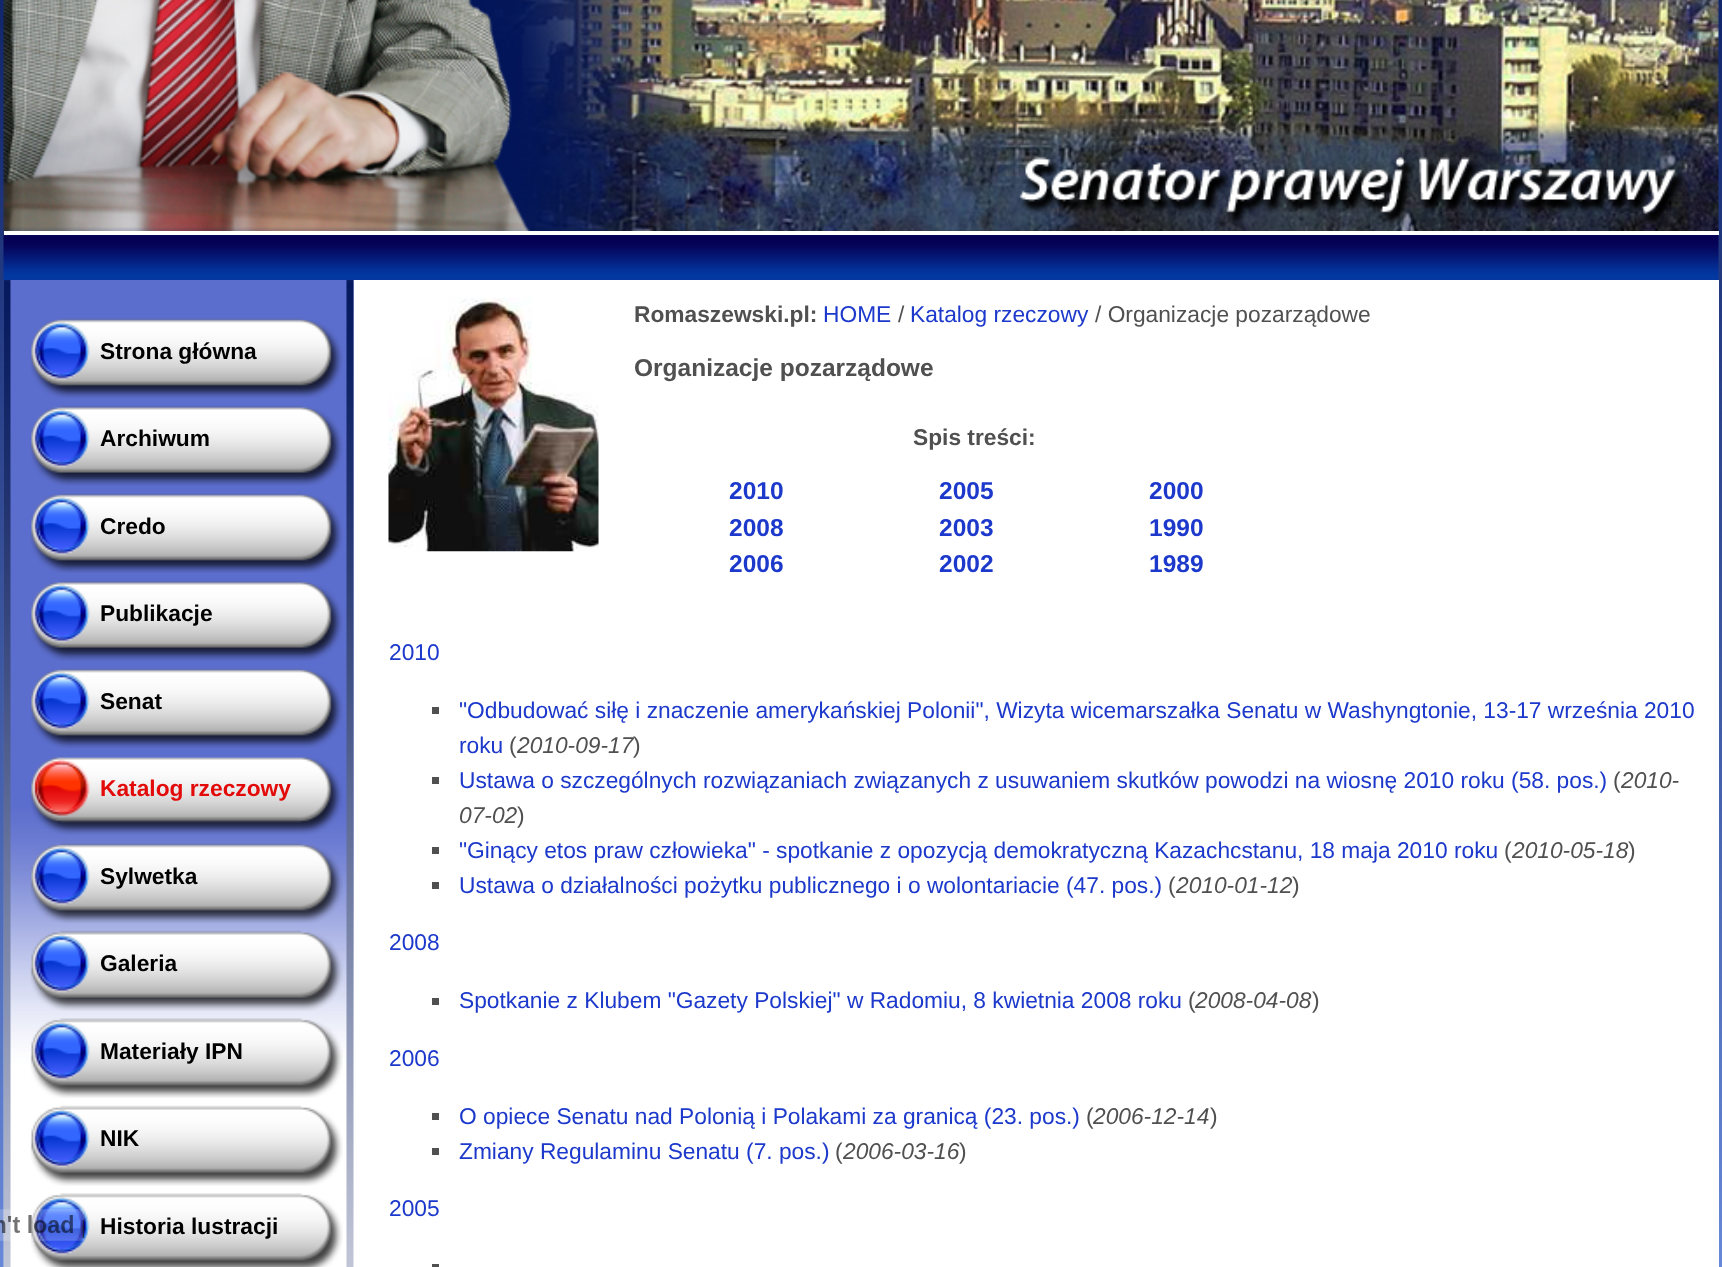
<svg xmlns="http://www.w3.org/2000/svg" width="1722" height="1267">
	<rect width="100%" height="100%" fill="#FFFFFF" />
	<image x="0" y="0" width="1722" height="1267" href="assets/img1.png" />
	<rect x="353" y="280" width="1366" height="987" fill="#FFFFFF" />
	<image x="3" y="280" width="351" height="987" href="assets/img5.png" />
	<image x="3" y="280" width="8" height="987" href="assets/img6.png" />
	<image x="30" y="1193" width="313" height="74" href="assets/img14.png" />
	<image x="0" y="1209" width="84" height="32" href="assets/img2.png" />
	<image x="3" y="234" width="1716" height="46" href="assets/img3.png" />
	<rect x="4" y="231" width="1715" height="4" fill="#FEFFFF" />
	<image x="3" y="0" width="1716" height="231" href="assets/img4.png" />
	<image x="30" y="318" width="313" height="80" href="assets/img7.png" />
	<text x="100" y="359" font-family="Liberation Sans" font-size="22.75" font-weight="700" fill="#000000">Strona główna</text>
	<image x="30" y="405" width="313" height="81" href="assets/img8.png" />
	<text x="100" y="446" font-family="Liberation Sans" font-size="22.75" font-weight="700" fill="#000000">Archiwum</text>
	<image x="30" y="493" width="313" height="80" href="assets/img7.png" />
	<text x="100" y="534" font-family="Liberation Sans" font-size="22.75" font-weight="700" fill="#000000">Credo</text>
	<image x="30" y="580" width="313" height="81" href="assets/img8.png" />
	<text x="100" y="621" font-family="Liberation Sans" font-size="22.75" font-weight="700" fill="#000000">Publikacje</text>
	<image x="30" y="668" width="313" height="80" href="assets/img7.png" />
	<text x="100" y="709" font-family="Liberation Sans" font-size="22.75" font-weight="700" fill="#000000">Senat</text>
	<image x="30" y="757" width="313" height="78" href="assets/img9.png" />
	<text x="100" y="796" font-family="Liberation Sans" font-size="22.75" font-weight="700" fill="#E30A0A">Katalog rzeczowy</text>
	<image x="30" y="843" width="313" height="80" href="assets/img10.png" />
	<text x="100" y="884" font-family="Liberation Sans" font-size="22.75" font-weight="700" fill="#000000">Sylwetka</text>
	<image x="30" y="930" width="313" height="81" href="assets/img11.png" />
	<text x="100" y="971" font-family="Liberation Sans" font-size="22.75" font-weight="700" fill="#000000">Galeria</text>
	<image x="30" y="1018" width="313" height="80" href="assets/img12.png" />
	<text x="100" y="1059" font-family="Liberation Sans" font-size="22.75" font-weight="700" fill="#000000">Materiały IPN</text>
	<image x="30" y="1105" width="313" height="81" href="assets/img13.png" />
	<g font-family="Liberation Sans" font-size="22.75" font-weight="700" fill="#000000">
		<text x="100" y="1146">NIK</text>
		<text x="100" y="1234">Historia lustracji</text>
	</g>
	<image x="346" y="280" width="8" height="987" href="assets/img15.png" />
	<image x="388" y="297" width="211" height="255" href="assets/img16.png" />
	<text x="634" y="322" font-family="Liberation Sans" font-size="22.75" font-weight="700" fill="#505050">Romaszewski.pl:</text>
	<text x="823" y="322" font-family="Liberation Sans" font-size="22.75" fill="#1C39CC">HOME</text>
	<text x="898" y="322" font-family="Liberation Sans" font-size="22.75" fill="#505050">/</text>
	<text x="910" y="322" font-family="Liberation Sans" font-size="22.75" fill="#1C39CC">Katalog rzeczowy</text>
	<text x="1095" y="322" font-family="Liberation Sans" font-size="22.75" fill="#505050">/ Organizacje pozarządowe</text>
	<text x="634" y="376" font-family="Liberation Sans" font-size="24.5" font-weight="700" fill="#505050">Organizacje pozarządowe</text>
	<text x="913" y="445" font-family="Liberation Sans" font-size="22.75" font-weight="700" fill="#505050">Spis treści:</text>
	<g font-family="Liberation Sans" font-size="24.5" font-weight="700" fill="#1C39CC">
		<text x="729" y="499">2010</text>
		<text x="729" y="536">2008</text>
		<text x="729" y="572">2006</text>
		<text x="939" y="499">2005</text>
		<text x="939" y="536">2003</text>
		<text x="939" y="572">2002</text>
		<text x="1149" y="499">2000</text>
		<text x="1149" y="536">1990</text>
		<text x="1149" y="572">1989</text>
	</g>
	<text x="389" y="660" font-family="Liberation Sans" font-size="22.75" fill="#1C39CC">2010</text>
	<rect x="432" y="707" width="7" height="7" fill="#505050" />
	<g font-family="Liberation Sans" font-size="22.75" fill="#1C39CC">
		<text x="459" y="718">"Odbudować siłę i znaczenie amerykańskiej Polonii", Wizyta wicemarszałka Senatu w Washyngtonie, 13-17 września 2010</text>
		<text x="459" y="753">roku</text>
	</g>
	<text x="509" y="753" font-family="Liberation Sans" font-size="22.75" fill="#505050">(</text>
	<text x="517" y="753" font-family="Liberation Sans" font-size="22.75" font-style="italic" fill="#505050">2010-09-17</text>
	<text x="633" y="753" font-family="Liberation Sans" font-size="22.75" fill="#505050">)</text>
	<rect x="432" y="777" width="7" height="7" fill="#505050" />
	<text x="459" y="788" font-family="Liberation Sans" font-size="22.75" fill="#1C39CC">Ustawa o szczególnych rozwiązaniach związanych z usuwaniem skutków powodzi na wiosnę 2010 roku (58. pos.)</text>
	<text x="1613" y="788" font-family="Liberation Sans" font-size="22.75" fill="#505050">(</text>
	<g font-family="Liberation Sans" font-size="22.75" font-style="italic" fill="#505050">
		<text x="1621" y="788">2010-</text>
		<text x="459" y="823">07-02</text>
	</g>
	<text x="517" y="823" font-family="Liberation Sans" font-size="22.75" fill="#505050">)</text>
	<rect x="432" y="847" width="7" height="7" fill="#505050" />
	<text x="459" y="858" font-family="Liberation Sans" font-size="22.75" fill="#1C39CC">"Ginący etos praw człowieka" - spotkanie z opozycją demokratyczną Kazachcstanu, 18 maja 2010 roku</text>
	<text x="1504" y="858" font-family="Liberation Sans" font-size="22.75" fill="#505050">(</text>
	<text x="1512" y="858" font-family="Liberation Sans" font-size="22.75" font-style="italic" fill="#505050">2010-05-18</text>
	<text x="1628" y="858" font-family="Liberation Sans" font-size="22.75" fill="#505050">)</text>
	<rect x="432" y="882" width="7" height="7" fill="#505050" />
	<text x="459" y="893" font-family="Liberation Sans" font-size="22.75" fill="#1C39CC">Ustawa o działalności pożytku publicznego i o wolontariacie (47. pos.)</text>
	<text x="1168" y="893" font-family="Liberation Sans" font-size="22.75" fill="#505050">(</text>
	<text x="1176" y="893" font-family="Liberation Sans" font-size="22.75" font-style="italic" fill="#505050">2010-01-12</text>
	<text x="1292" y="893" font-family="Liberation Sans" font-size="22.75" fill="#505050">)</text>
	<text x="389" y="950" font-family="Liberation Sans" font-size="22.75" fill="#1C39CC">2008</text>
	<rect x="432" y="998" width="7" height="7" fill="#505050" />
	<text x="459" y="1008" font-family="Liberation Sans" font-size="22.75" fill="#1C39CC">Spotkanie z Klubem "Gazety Polskiej" w Radomiu, 8 kwietnia 2008 roku</text>
	<text x="1188" y="1008" font-family="Liberation Sans" font-size="22.75" fill="#505050">(</text>
	<text x="1195" y="1008" font-family="Liberation Sans" font-size="22.75" font-style="italic" fill="#505050">2008-04-08</text>
	<text x="1312" y="1008" font-family="Liberation Sans" font-size="22.75" fill="#505050">)</text>
	<text x="389" y="1066" font-family="Liberation Sans" font-size="22.75" fill="#1C39CC">2006</text>
	<rect x="432" y="1113" width="7" height="7" fill="#505050" />
	<text x="459" y="1124" font-family="Liberation Sans" font-size="22.75" fill="#1C39CC">O opiece Senatu nad Polonią i Polakami za granicą (23. pos.)</text>
	<text x="1086" y="1124" font-family="Liberation Sans" font-size="22.75" fill="#505050">(</text>
	<text x="1093" y="1124" font-family="Liberation Sans" font-size="22.75" font-style="italic" fill="#505050">2006-12-14</text>
	<text x="1210" y="1124" font-family="Liberation Sans" font-size="22.75" fill="#505050">)</text>
	<rect x="432" y="1148" width="7" height="7" fill="#505050" />
	<text x="459" y="1159" font-family="Liberation Sans" font-size="22.75" fill="#1C39CC">Zmiany Regulaminu Senatu (7. pos.)</text>
	<text x="835" y="1159" font-family="Liberation Sans" font-size="22.75" fill="#505050">(</text>
	<text x="843" y="1159" font-family="Liberation Sans" font-size="22.75" font-style="italic" fill="#505050">2006-03-16</text>
	<text x="959" y="1159" font-family="Liberation Sans" font-size="22.75" fill="#505050">)</text>
	<text x="389" y="1216" font-family="Liberation Sans" font-size="22.75" fill="#1C39CC">2005</text>
	<rect x="432" y="1264" width="7" height="3" fill="#505050" />
</svg>
